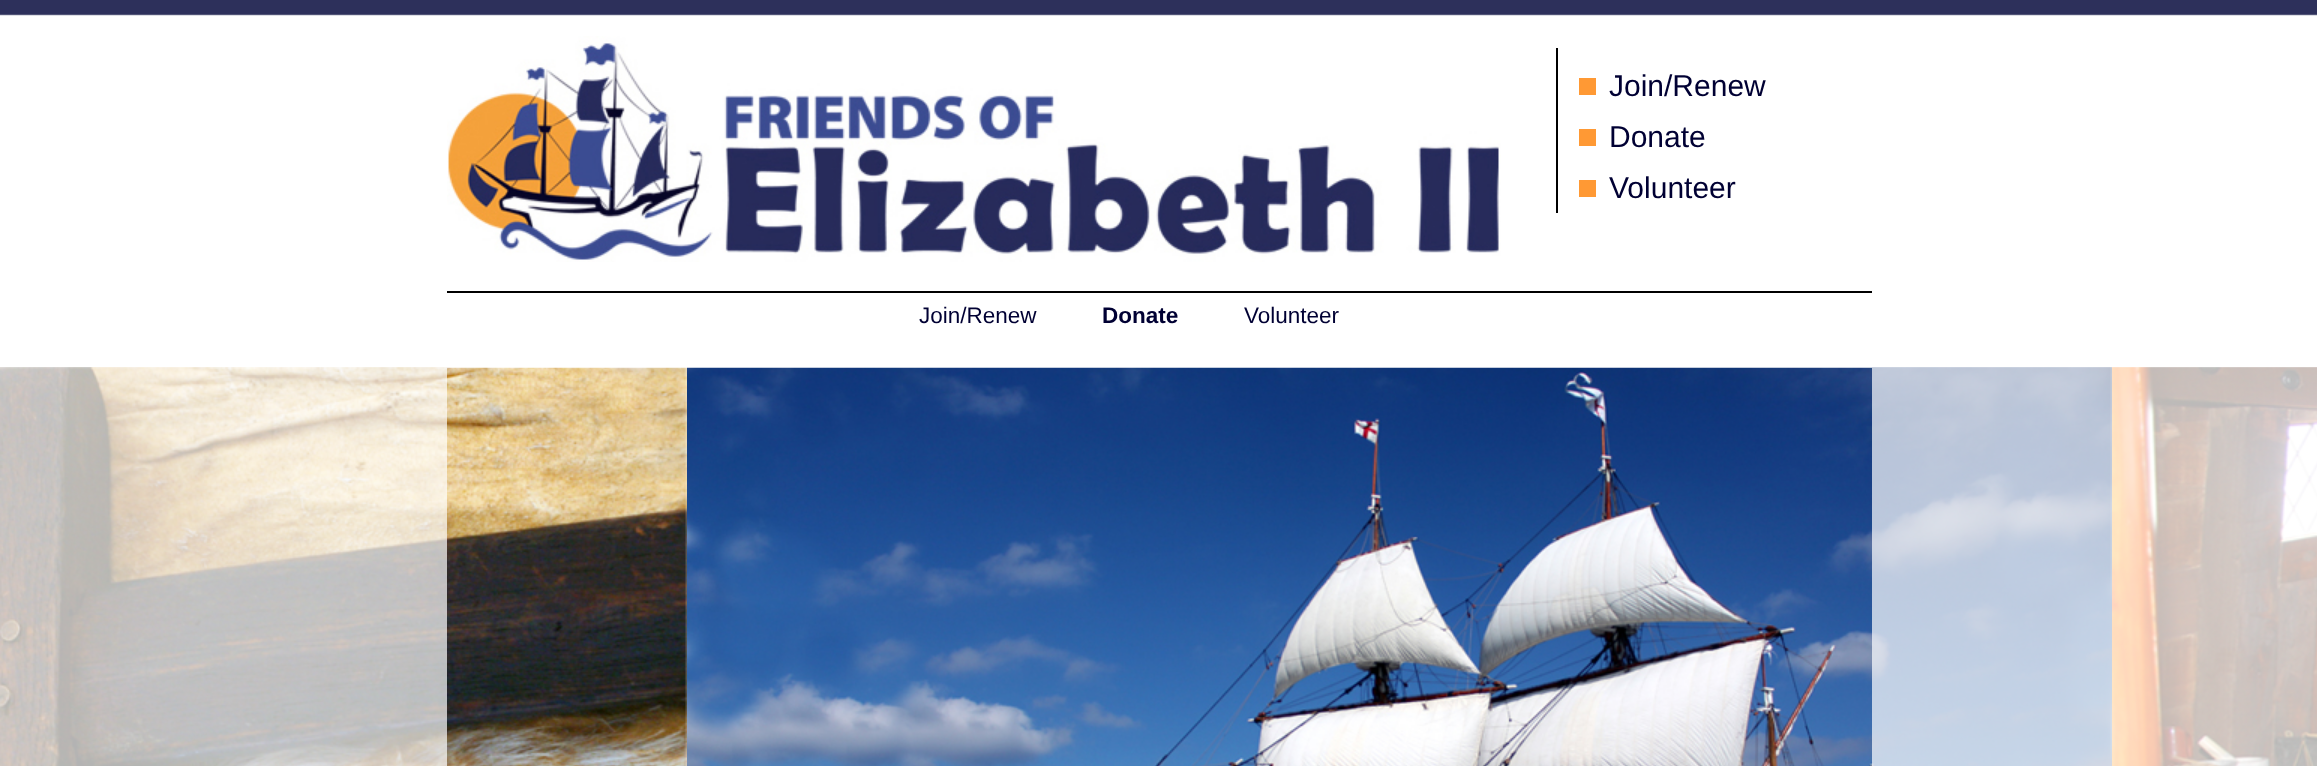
<svg xmlns="http://www.w3.org/2000/svg" width="2317" height="766">
	<rect width="100%" height="100%" fill="#FFFFFF" />
	<image x="0" y="0" width="2317" height="16" href="assets/img1.png" />
	<rect x="447" y="291" width="1425" height="2" fill="#000000" />
	<image x="447" y="36" width="1054" height="226" href="assets/img2.png" />
	<rect x="1556" y="48" width="2" height="165" fill="#000000" />
	<text x="1609" y="96" font-family="Liberation Sans" font-size="30" fill="#000033">Join/Renew</text>
	<rect x="1579" y="78" width="17" height="17" fill="#FF9934" />
	<text x="1609" y="147" font-family="Liberation Sans" font-size="30" fill="#000033">Donate</text>
	<rect x="1579" y="129" width="17" height="17" fill="#FF9934" />
	<text x="1609" y="198" font-family="Liberation Sans" font-size="30" fill="#000033">Volunteer</text>
	<rect x="1579" y="180" width="17" height="17" fill="#FF9934" />
	<text x="919" y="323" font-family="Liberation Sans" font-size="22.5" fill="#000033">Join/Renew</text>
	<text x="1102" y="323" font-family="Liberation Sans" font-size="22.5" font-weight="700" fill="#000033">Donate</text>
	<text x="1244" y="323" font-family="Liberation Sans" font-size="22.5" fill="#000033">Volunteer</text>
	<image x="0" y="367" width="687" height="399" href="assets/img3.png" />
	<image x="687" y="367" width="1425" height="399" href="assets/img4.png" />
	<image x="2112" y="367" width="205" height="399" href="assets/img5.png" />
	<rect x="0" y="368" width="447" height="398" fill="#FFFFFF" fill-opacity="0.7" />
	<rect x="1872" y="368" width="445" height="398" fill="#FFFFFF" fill-opacity="0.7" />
</svg>
